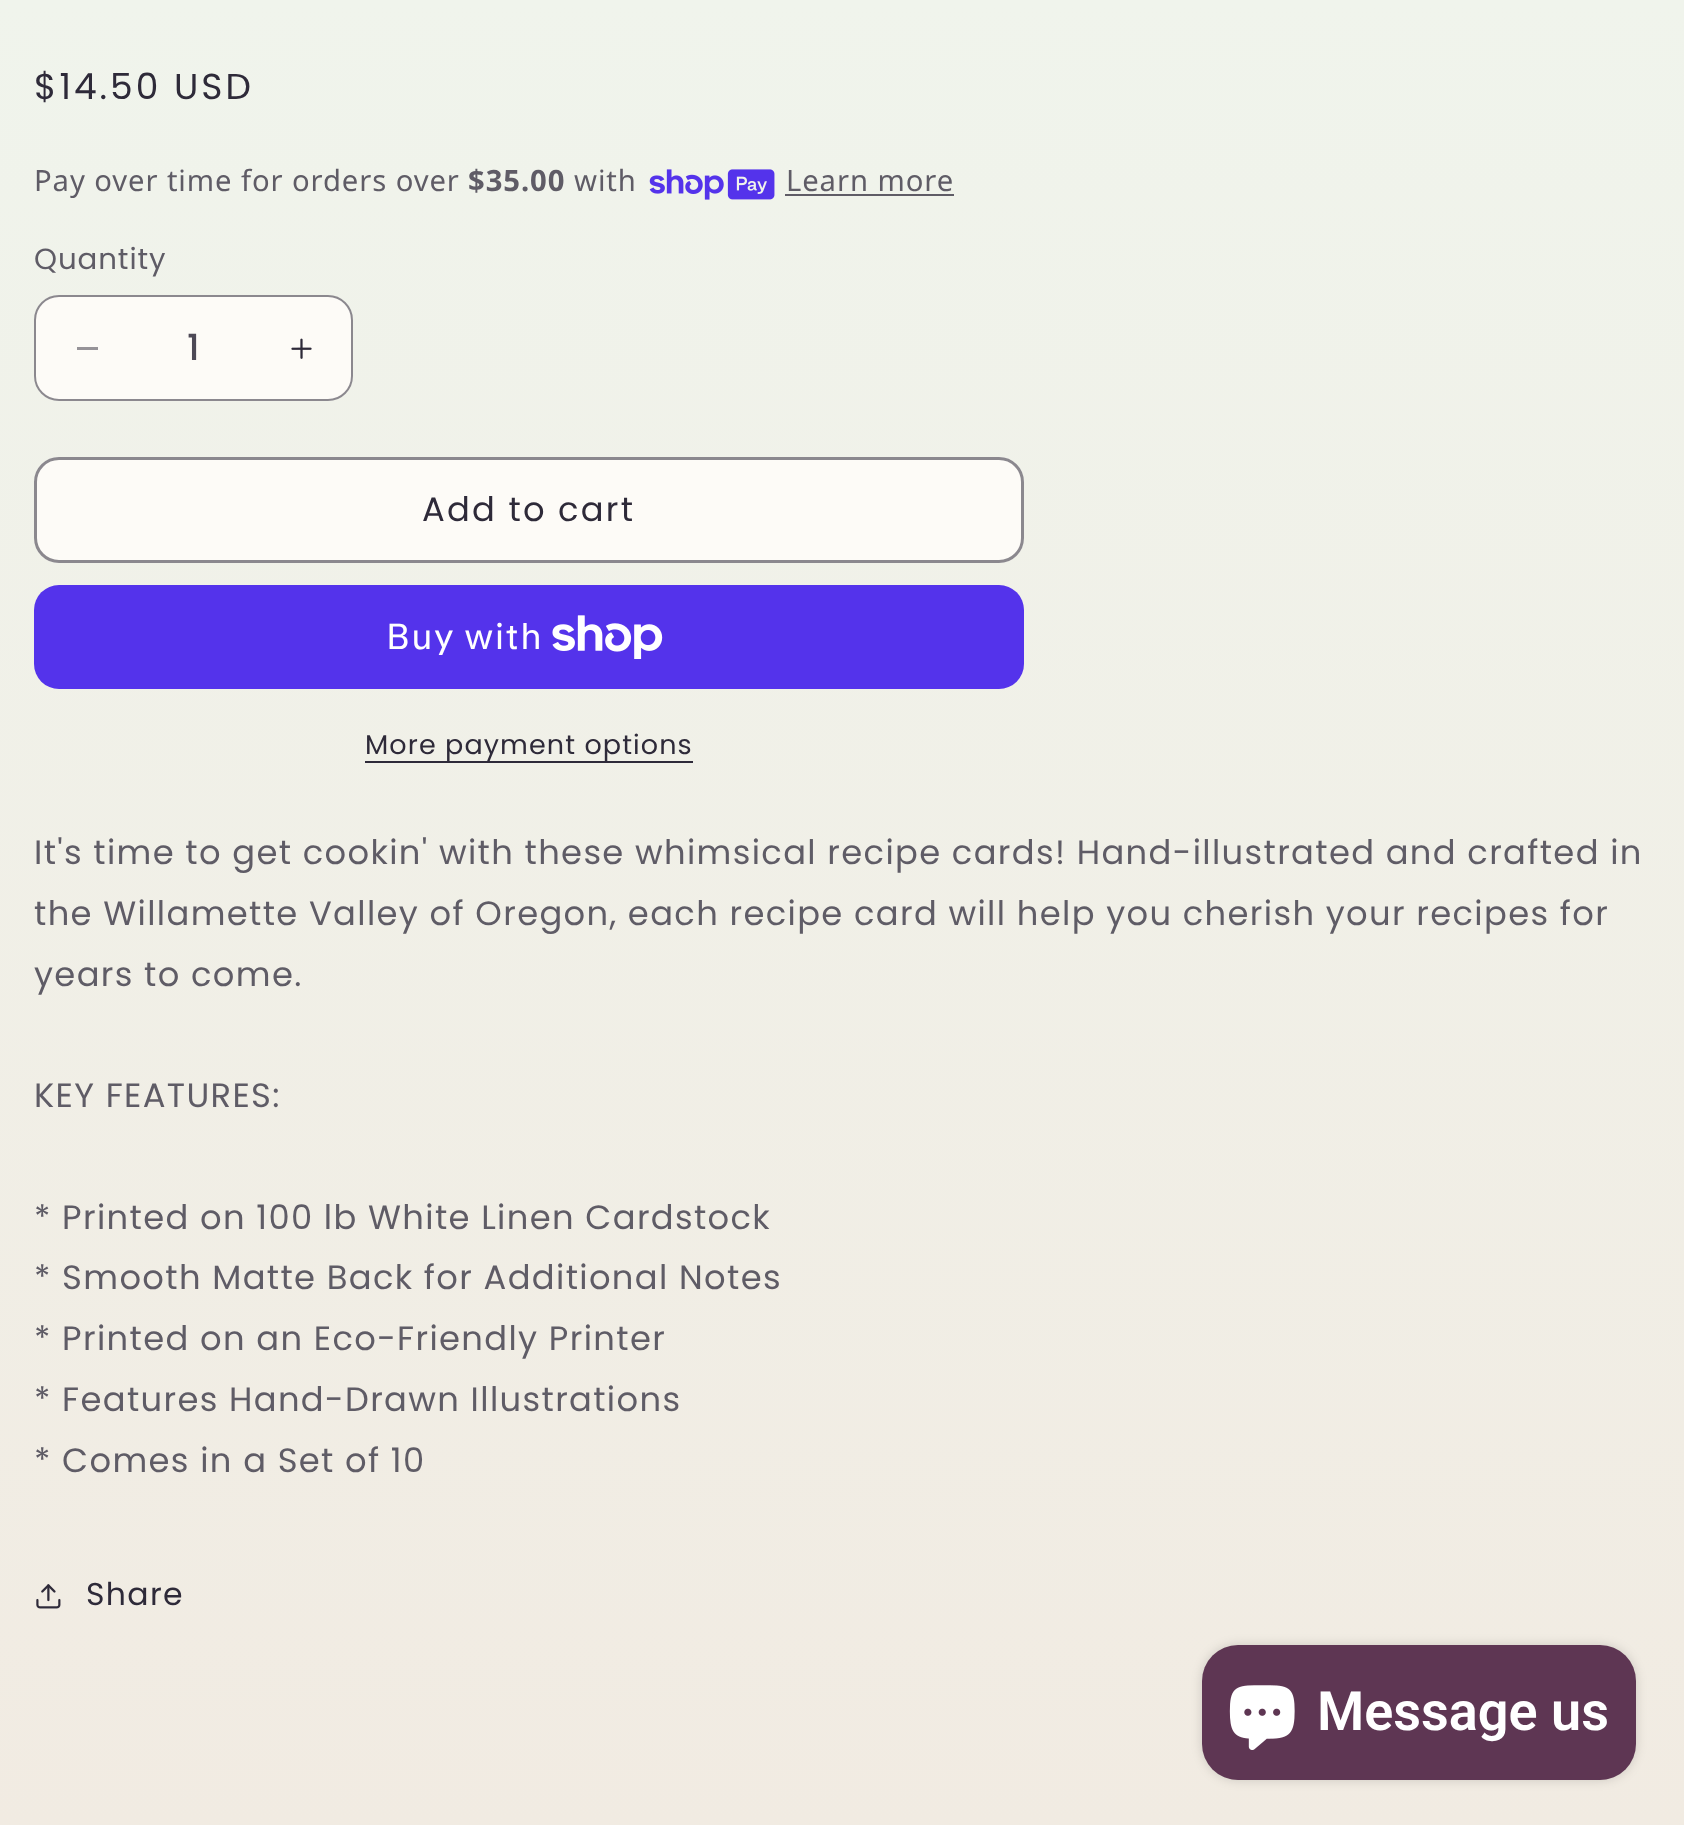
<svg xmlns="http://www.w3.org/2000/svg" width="1684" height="1825">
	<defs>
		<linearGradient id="g1" gradientUnits="userSpaceOnUse" x1="843" y1="0" x2="843" y2="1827"><stop offset="0" stop-color="#F0F4EC" /><stop offset="1" stop-color="#F1EBE2" /></linearGradient>
	</defs>
	<rect width="100%" height="100%" fill="#FFFFFF" />
	<rect x="0" y="0" width="1684" height="1825" fill="url(#g1)" />
	<text x="34" y="99" font-family="Poppins" font-size="36" letter-spacing="3" fill="#2E2A39">$14.50 USD</text>
	<text x="34" y="191" font-family="Noto Sans" font-size="29.25" letter-spacing="0.9" fill="#5F5C66">Pay over time for orders over</text>
	<text x="468" y="191" font-family="Noto Sans" font-size="29.25" font-weight="700" letter-spacing="0.9" fill="#5F5C66">$35.00</text>
	<text x="574" y="191" font-family="Noto Sans" font-size="29.25" letter-spacing="0.9" fill="#5F5C66">with</text>
	<image x="649" y="169" width="126" height="31" href="assets/img1.png" />
	<text x="786" y="191" font-family="Noto Sans" font-size="29.25" letter-spacing="0.9" fill="#5F5C66">Learn more</text>
	<rect x="785" y="194" width="169" height="2" fill="#5F5C66" />
	<text x="34" y="269" font-family="Poppins" font-size="29.25" letter-spacing="0.9" fill="#5F5C66">Quantity</text>
	<rect x="34" y="295" width="319" height="106" rx="25" fill="#FDFBF7" />
	<rect x="77" y="347" width="21" height="3" fill="#969398" />
	<image x="291" y="338" width="21" height="21" href="assets/img2.png" />
	<rect x="35" y="296" width="317" height="104" rx="24" fill="none" stroke="#2E2A39" stroke-opacity="0.55" stroke-width="2" />
	<text x="187" y="360" font-family="Poppins" font-size="36" font-weight="500" fill="#4D4956">1</text>
	<rect x="34" y="457" width="990" height="106" rx="25" fill="#FDFBF7" />
	<rect x="35" y="458" width="988" height="104" rx="24" fill="none" stroke="#FDFBF7" stroke-width="2" />
	<rect x="35.5" y="458.5" width="987" height="103" rx="23.5" fill="none" stroke="#2E2A39" stroke-opacity="0.55" stroke-width="3" />
	<text x="422" y="521" font-family="Poppins" font-size="33.75" letter-spacing="2.25" fill="#2E2A39">Add to cart</text>
	<rect x="34" y="585" width="990" height="104" rx="25" fill="#5433EB" />
	<text x="386" y="649" font-family="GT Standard" font-size="36" letter-spacing="1.35" fill="#FFFFFF">Buy with</text>
	<image x="552" y="615" width="111" height="44" href="assets/img3.png" />
	<text x="365" y="754" font-family="Poppins" font-size="27" letter-spacing="1.1" fill="#2E2A39">More payment options</text>
	<rect x="365" y="761" width="328" height="2" fill="#2E2A39" />
	<g font-family="Poppins" font-size="33.75" letter-spacing="1.35" fill="#5F5C66">
		<text x="34" y="864">It's time to get cookin' with these whimsical recipe cards! Hand-illustrated and crafted in</text>
		<text x="34" y="925">the Willamette Valley of Oregon, each recipe card will help you cherish your recipes for</text>
		<text x="34" y="986">years to come.</text>
		<text x="34" y="1107">KEY FEATURES:</text>
		<text x="34" y="1229">* Printed on 100 lb White Linen Cardstock</text>
		<text x="34" y="1289">* Smooth Matte Back for Additional Notes</text>
		<text x="34" y="1350">* Printed on an Eco-Friendly Printer</text>
		<text x="34" y="1411">* Features Hand-Drawn Illustrations</text>
		<text x="34" y="1472">* Comes in a Set of 10</text>
	</g>
	<image x="36" y="1584" width="25" height="25" href="assets/img4.png" />
	<text x="86" y="1605" font-family="Poppins" font-size="31.5" letter-spacing="1.35" fill="#2E2A39">Share</text>
	<rect x="1202" y="1645" width="434" height="135" rx="36" fill="#000000" fill-opacity="0.15" filter="blur(5.5px)" />
	<rect x="1202" y="1645" width="434" height="135" rx="36" fill="#5E3653" />
	<image x="1229" y="1685" width="66" height="65" href="assets/img5.png" />
	<text x="1317" y="1730" font-family="Roboto" font-size="54" font-weight="600" fill="#FFFFFF">Message us</text>
</svg>
